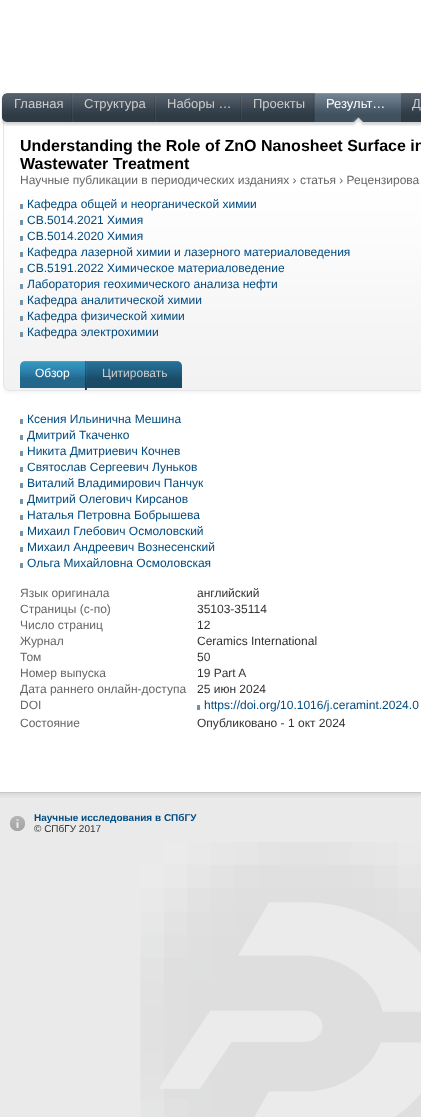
<svg xmlns="http://www.w3.org/2000/svg" width="421" height="1117">
	<rect width="100%" height="100%" fill="#EAEAEA" />
	<image x="140" y="842" width="281" height="275" href="assets/img1.png" />
	<rect x="0" y="0" width="421" height="792" fill="#FFFFFF" />
	<image x="3" y="119" width="418" height="275" href="assets/img6.png" />
	<image x="1" y="93" width="420" height="33" href="assets/img2.png" />
	<image x="71" y="94" width="2" height="28" href="assets/img3.png" />
	<text x="14" y="108" font-family="Liberation Sans" font-size="13" fill="#CCCCCC">Главная</text>
	<image x="154" y="94" width="2" height="28" href="assets/img3.png" />
	<text x="84" y="108" font-family="Liberation Sans" font-size="13" fill="#CCCCCC">Структура</text>
	<image x="240" y="94" width="2" height="28" href="assets/img3.png" />
	<text x="167" y="108" font-family="Liberation Sans" font-size="13" fill="#CCCCCC">Наборы …</text>
	<image x="313" y="94" width="2" height="28" href="assets/img3.png" />
	<text x="253" y="108" font-family="Liberation Sans" font-size="13" fill="#CCCCCC">Проекты</text>
	<image x="315" y="93" width="86" height="29" href="assets/img4.png" />
	<image x="352" y="117" width="12" height="10" href="assets/img5.png" />
	<text x="326" y="108" font-family="Liberation Sans" font-size="13" fill="#FFFFFF">Результ…</text>
	<text x="412" y="108" font-family="Liberation Sans" font-size="13" fill="#CCCCCC">Д</text>
	<g font-family="Liberation Sans" font-size="16" font-weight="700" fill="#000000">
		<text x="20" y="151">Understanding the Role of ZnO Nanosheet Surface in</text>
		<text x="20" y="169">Wastewater Treatment</text>
	</g>
	<text x="20" y="184" font-family="Liberation Sans" font-size="12" fill="#666666">Научные публикации в периодических изданиях › статья › Рецензирова</text>
	<rect x="20" y="204" width="3" height="5" fill="#7790A3" />
	<text x="27" y="208" font-family="Liberation Sans" font-size="12" fill="#004B80">Кафедра общей и неорганической химии</text>
	<rect x="20" y="220" width="3" height="5" fill="#7790A3" />
	<text x="27" y="224" font-family="Liberation Sans" font-size="12" fill="#004B80">CB.5014.2021 Химия</text>
	<rect x="20" y="236" width="3" height="5" fill="#7790A3" />
	<text x="27" y="240" font-family="Liberation Sans" font-size="12" fill="#004B80">CB.5014.2020 Химия</text>
	<rect x="20" y="252" width="3" height="5" fill="#7790A3" />
	<text x="27" y="256" font-family="Liberation Sans" font-size="12" fill="#004B80">Кафедра лазерной химии и лазерного материаловедения</text>
	<rect x="20" y="268" width="3" height="5" fill="#7790A3" />
	<text x="27" y="272" font-family="Liberation Sans" font-size="12" fill="#004B80">CB.5191.2022 Химическое материаловедение</text>
	<rect x="20" y="284" width="3" height="5" fill="#7790A3" />
	<text x="27" y="288" font-family="Liberation Sans" font-size="12" fill="#004B80">Лаборатория геохимического анализа нефти</text>
	<rect x="20" y="300" width="3" height="5" fill="#7790A3" />
	<text x="27" y="304" font-family="Liberation Sans" font-size="12" fill="#004B80">Кафедра аналитической химии</text>
	<rect x="20" y="316" width="3" height="5" fill="#7790A3" />
	<text x="27" y="320" font-family="Liberation Sans" font-size="12" fill="#004B80">Кафедра физической химии</text>
	<rect x="20" y="332" width="3" height="5" fill="#7790A3" />
	<text x="27" y="336" font-family="Liberation Sans" font-size="12" fill="#004B80">Кафедра электрохимии</text>
	<image x="20" y="361" width="65" height="27" href="assets/img7.png" />
	<text x="35" y="377" font-family="Liberation Sans" font-size="12" fill="#FFFFFF">Обзор</text>
	<image x="85" y="361" width="2" height="29" href="assets/img8.png" />
	<image x="87" y="361" width="95" height="27" href="assets/img9.png" />
	<text x="102" y="377" font-family="Liberation Sans" font-size="12" fill="#CCCCCC">Цитировать</text>
	<rect x="20" y="419" width="3" height="5" fill="#7790A3" />
	<text x="27" y="423" font-family="Liberation Sans" font-size="12" fill="#004B80">Ксения Ильинична Мешина</text>
	<rect x="20" y="435" width="3" height="5" fill="#7790A3" />
	<text x="27" y="439" font-family="Liberation Sans" font-size="12" fill="#004B80">Дмитрий Ткаченко</text>
	<rect x="20" y="451" width="3" height="5" fill="#7790A3" />
	<text x="27" y="455" font-family="Liberation Sans" font-size="12" fill="#004B80">Никита Дмитриевич Кочнев</text>
	<rect x="20" y="467" width="3" height="5" fill="#7790A3" />
	<text x="27" y="471" font-family="Liberation Sans" font-size="12" fill="#004B80">Святослав Сергеевич Луньков</text>
	<rect x="20" y="483" width="3" height="5" fill="#7790A3" />
	<text x="27" y="487" font-family="Liberation Sans" font-size="12" fill="#004B80">Виталий Владимирович Панчук</text>
	<rect x="20" y="499" width="3" height="5" fill="#7790A3" />
	<text x="27" y="503" font-family="Liberation Sans" font-size="12" fill="#004B80">Дмитрий Олегович Кирсанов</text>
	<rect x="20" y="515" width="3" height="5" fill="#7790A3" />
	<text x="27" y="519" font-family="Liberation Sans" font-size="12" fill="#004B80">Наталья Петровна Бобрышева</text>
	<rect x="20" y="531" width="3" height="5" fill="#7790A3" />
	<text x="27" y="535" font-family="Liberation Sans" font-size="12" fill="#004B80">Михаил Глебович Осмоловский</text>
	<rect x="20" y="547" width="3" height="5" fill="#7790A3" />
	<text x="27" y="551" font-family="Liberation Sans" font-size="12" fill="#004B80">Михаил Андреевич Вознесенский</text>
	<rect x="20" y="563" width="3" height="5" fill="#7790A3" />
	<text x="27" y="567" font-family="Liberation Sans" font-size="12" fill="#004B80">Ольга Михайловна Осмоловская</text>
	<text x="20" y="597" font-family="Liberation Sans" font-size="12" fill="#666666">Язык оригинала</text>
	<text x="197" y="597" font-family="Liberation Sans" font-size="12" fill="#333333">английский</text>
	<text x="20" y="613" font-family="Liberation Sans" font-size="12" fill="#666666">Страницы (с-по)</text>
	<text x="197" y="613" font-family="Liberation Sans" font-size="12" fill="#333333">35103-35114</text>
	<text x="20" y="629" font-family="Liberation Sans" font-size="12" fill="#666666">Число страниц</text>
	<text x="197" y="629" font-family="Liberation Sans" font-size="12" fill="#333333">12</text>
	<text x="20" y="645" font-family="Liberation Sans" font-size="12" fill="#666666">Журнал</text>
	<text x="197" y="645" font-family="Liberation Sans" font-size="12" fill="#333333">Ceramics International</text>
	<text x="20" y="661" font-family="Liberation Sans" font-size="12" fill="#666666">Том</text>
	<text x="197" y="661" font-family="Liberation Sans" font-size="12" fill="#333333">50</text>
	<text x="20" y="677" font-family="Liberation Sans" font-size="12" fill="#666666">Номер выпуска</text>
	<text x="197" y="677" font-family="Liberation Sans" font-size="12" fill="#333333">19 Part A</text>
	<text x="20" y="693" font-family="Liberation Sans" font-size="12" fill="#666666">Дата раннего онлайн-доступа</text>
	<text x="197" y="693" font-family="Liberation Sans" font-size="12" fill="#333333">25 июн 2024</text>
	<text x="20" y="709" font-family="Liberation Sans" font-size="12" fill="#666666">DOI</text>
	<rect x="197" y="705" width="3" height="5" fill="#7790A3" />
	<text x="204" y="709" font-family="Liberation Sans" font-size="12" fill="#004B80">https://doi.org/10.1016/j.ceramint.2024.0</text>
	<text x="20" y="727" font-family="Liberation Sans" font-size="12" fill="#666666">Состояние</text>
	<text x="197" y="727" font-family="Liberation Sans" font-size="12" fill="#333333">Опубликовано - 1 окт 2024</text>
	<image x="0" y="792" width="421" height="6" href="assets/img10.png" />
	<image x="9" y="816" width="16" height="15" href="assets/img11.png" />
	<text x="34" y="821" font-family="Liberation Sans" font-size="10" font-weight="700" fill="#004B80">Научные исследования в СПбГУ</text>
	<text x="34" y="832" font-family="Liberation Sans" font-size="10" fill="#333333">© СПбГУ 2017</text>
</svg>
